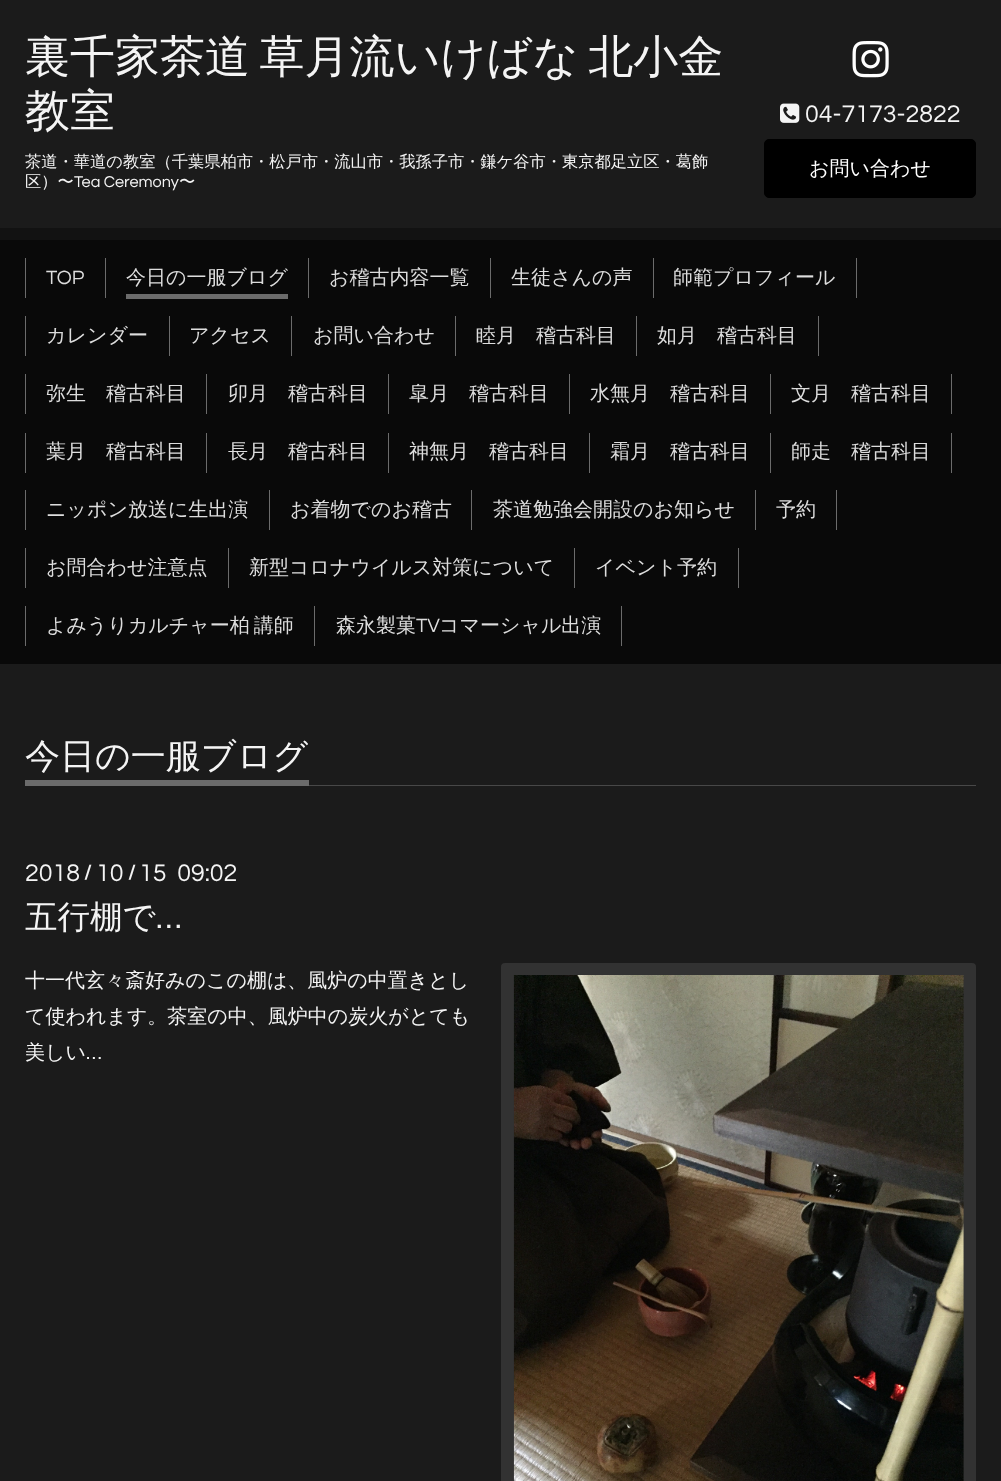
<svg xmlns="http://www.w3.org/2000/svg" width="1001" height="1481">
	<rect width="100%" height="100%" fill="#1B1B1B" />
	<g font-family="WenQuanYi Zen Hei" font-size="45" font-weight="500" fill="#F4F4F4">
		<text x="25" y="72" word-spacing="-4">裏千家茶道 草月流いけばな 北小金</text>
		<text x="25" y="126">教室</text>
	</g>
	<g font-family="WenQuanYi Zen Hei" font-size="16.25" font-weight="500" fill="#F4F4F4">
		<text x="25" y="167">茶道・華道の教室（千葉県柏市・松戸市・流山市・我孫子市・鎌ケ谷市・東京都足立区・葛飾</text>
		<text x="25" y="187">区）〜</text>
	</g>
	<text x="74" y="187" font-family="Questrial" font-size="16.25" fill="#F4F4F4">Tea Ceremony</text>
	<text x="179" y="187" font-family="WenQuanYi Zen Hei" font-size="16.25" font-weight="500" fill="#F4F4F4">〜</text>
	<image x="852" y="41" width="37" height="37" href="assets/img1.png" />
	<image x="780" y="103" width="20" height="20" href="assets/img2.png" />
	<text x="805" y="122" font-family="Questrial" font-size="25" fill="#F4F4F4">04-7173-2822</text>
	<rect x="764.5" y="139.5" width="211" height="58" rx="4.5" fill="#000000" stroke="#000000" />
	<text x="809" y="175" font-family="WenQuanYi Zen Hei" font-size="20" font-weight="500" fill="#FFFFFF">お問い合わせ</text>
	<rect x="0" y="228" width="1001" height="12" fill="#121212" />
	<rect x="0" y="240" width="1001" height="424" fill="#090909" />
	<rect x="105" y="258" width="1" height="40" fill="#6B6B6B" />
	<rect x="25" y="258" width="1" height="40" fill="#6B6B6B" />
	<text x="46" y="284" font-family="Questrial" font-size="20" fill="#DDDDDD">TOP</text>
	<rect x="308" y="258" width="1" height="40" fill="#6B6B6B" />
	<text x="126" y="284" font-family="WenQuanYi Zen Hei" font-size="20" font-weight="500" fill="#DDDDDD">今日の一服ブログ</text>
	<rect x="126" y="294" width="162" height="5" fill="#6B6B6B" />
	<rect x="490" y="258" width="1" height="40" fill="#6B6B6B" />
	<text x="329" y="284" font-family="WenQuanYi Zen Hei" font-size="20" font-weight="500" fill="#DDDDDD">お稽古内容一覧</text>
	<rect x="653" y="258" width="1" height="40" fill="#6B6B6B" />
	<text x="511" y="284" font-family="WenQuanYi Zen Hei" font-size="20" font-weight="500" fill="#DDDDDD">生徒さんの声</text>
	<rect x="856" y="258" width="1" height="40" fill="#6B6B6B" />
	<text x="673" y="284" font-family="WenQuanYi Zen Hei" font-size="20" font-weight="500" fill="#DDDDDD">師範プロフィール</text>
	<rect x="169" y="316" width="1" height="40" fill="#6B6B6B" />
	<rect x="25" y="316" width="1" height="40" fill="#6B6B6B" />
	<text x="46" y="342" font-family="WenQuanYi Zen Hei" font-size="20" font-weight="500" fill="#DDDDDD">カレンダー</text>
	<rect x="291" y="316" width="1" height="40" fill="#6B6B6B" />
	<text x="189" y="342" font-family="WenQuanYi Zen Hei" font-size="20" font-weight="500" fill="#DDDDDD">アクセス</text>
	<rect x="455" y="316" width="1" height="40" fill="#6B6B6B" />
	<text x="313" y="342" font-family="WenQuanYi Zen Hei" font-size="20" font-weight="500" fill="#DDDDDD">お問い合わせ</text>
	<rect x="636" y="316" width="1" height="40" fill="#6B6B6B" />
	<text x="476" y="342" font-family="WenQuanYi Zen Hei" font-size="20" font-weight="500" fill="#DDDDDD">睦月　稽古科目</text>
	<rect x="818" y="316" width="1" height="40" fill="#6B6B6B" />
	<text x="657" y="342" font-family="WenQuanYi Zen Hei" font-size="20" font-weight="500" fill="#DDDDDD">如月　稽古科目</text>
	<rect x="206" y="374" width="1" height="40" fill="#6B6B6B" />
	<rect x="25" y="374" width="1" height="40" fill="#6B6B6B" />
	<text x="46" y="400" font-family="WenQuanYi Zen Hei" font-size="20" font-weight="500" fill="#DDDDDD">弥生　稽古科目</text>
	<rect x="388" y="374" width="1" height="40" fill="#6B6B6B" />
	<text x="228" y="400" font-family="WenQuanYi Zen Hei" font-size="20" font-weight="500" fill="#DDDDDD">卯月　稽古科目</text>
	<rect x="569" y="374" width="1" height="40" fill="#6B6B6B" />
	<text x="409" y="400" font-family="WenQuanYi Zen Hei" font-size="20" font-weight="500" fill="#DDDDDD">皐月　稽古科目</text>
	<rect x="770" y="374" width="1" height="40" fill="#6B6B6B" />
	<text x="590" y="400" font-family="WenQuanYi Zen Hei" font-size="20" font-weight="500" fill="#DDDDDD">水無月　稽古科目</text>
	<rect x="951" y="374" width="1" height="40" fill="#6B6B6B" />
	<text x="791" y="400" font-family="WenQuanYi Zen Hei" font-size="20" font-weight="500" fill="#DDDDDD">文月　稽古科目</text>
	<rect x="206" y="433" width="1" height="40" fill="#6B6B6B" />
	<rect x="25" y="433" width="1" height="40" fill="#6B6B6B" />
	<text x="46" y="458" font-family="WenQuanYi Zen Hei" font-size="20" font-weight="500" fill="#DDDDDD">葉月　稽古科目</text>
	<rect x="388" y="433" width="1" height="40" fill="#6B6B6B" />
	<text x="228" y="458" font-family="WenQuanYi Zen Hei" font-size="20" font-weight="500" fill="#DDDDDD">長月　稽古科目</text>
	<rect x="589" y="433" width="1" height="40" fill="#6B6B6B" />
	<text x="409" y="458" font-family="WenQuanYi Zen Hei" font-size="20" font-weight="500" fill="#DDDDDD">神無月　稽古科目</text>
	<rect x="770" y="433" width="1" height="40" fill="#6B6B6B" />
	<text x="610" y="458" font-family="WenQuanYi Zen Hei" font-size="20" font-weight="500" fill="#DDDDDD">霜月　稽古科目</text>
	<rect x="951" y="433" width="1" height="40" fill="#6B6B6B" />
	<text x="791" y="458" font-family="WenQuanYi Zen Hei" font-size="20" font-weight="500" fill="#DDDDDD">師走　稽古科目</text>
	<rect x="269" y="490" width="1" height="40" fill="#6B6B6B" />
	<rect x="25" y="490" width="1" height="40" fill="#6B6B6B" />
	<text x="46" y="516" font-family="WenQuanYi Zen Hei" font-size="20" font-weight="500" fill="#DDDDDD">ニッポン放送に生出演</text>
	<rect x="471" y="490" width="1" height="40" fill="#6B6B6B" />
	<text x="290" y="516" font-family="WenQuanYi Zen Hei" font-size="20" font-weight="500" fill="#DDDDDD">お着物でのお稽古</text>
	<rect x="755" y="490" width="1" height="40" fill="#6B6B6B" />
	<text x="493" y="516" font-family="WenQuanYi Zen Hei" font-size="20" font-weight="500" fill="#DDDDDD">茶道勉強会開設のお知らせ</text>
	<rect x="836" y="490" width="1" height="40" fill="#6B6B6B" />
	<text x="776" y="516" font-family="WenQuanYi Zen Hei" font-size="20" font-weight="500" fill="#DDDDDD">予約</text>
	<rect x="228" y="548" width="1" height="40" fill="#6B6B6B" />
	<rect x="25" y="548" width="1" height="40" fill="#6B6B6B" />
	<text x="46" y="574" font-family="WenQuanYi Zen Hei" font-size="20" font-weight="500" fill="#DDDDDD">お問合わせ注意点</text>
	<rect x="574" y="548" width="1" height="40" fill="#6B6B6B" />
	<text x="249" y="574" font-family="WenQuanYi Zen Hei" font-size="20" font-weight="500" fill="#DDDDDD">新型コロナウイルス対策について</text>
	<rect x="738" y="548" width="1" height="40" fill="#6B6B6B" />
	<text x="595" y="574" font-family="WenQuanYi Zen Hei" font-size="20" font-weight="500" fill="#DDDDDD">イベント予約</text>
	<rect x="314" y="606" width="1" height="40" fill="#6B6B6B" />
	<rect x="25" y="606" width="1" height="40" fill="#6B6B6B" />
	<text x="46" y="632" word-spacing="-2" font-family="WenQuanYi Zen Hei" font-size="20" font-weight="500" fill="#DDDDDD">よみうりカルチャー柏 講師</text>
	<rect x="621" y="606" width="1" height="40" fill="#6B6B6B" />
	<text x="336" y="632" font-family="WenQuanYi Zen Hei" font-size="20" font-weight="500" fill="#DDDDDD">森永製菓</text>
	<text x="416" y="632" font-family="Questrial" font-size="20" fill="#DDDDDD">TV</text>
	<text x="439" y="632" font-family="WenQuanYi Zen Hei" font-size="20" font-weight="500" fill="#DDDDDD">コマーシャル出演</text>
	<rect x="309" y="785" width="667" height="1" fill="#484848" />
	<rect x="25" y="780" width="284" height="6" fill="#6B6B6B" />
	<text x="25" y="768" font-family="WenQuanYi Zen Hei" font-size="35" font-weight="500" fill="#F4F4F4">今日の一服ブログ</text>
	<text x="25" y="881" font-family="Questrial" font-size="25" fill="#F4F4F4">2018</text>
	<text x="84" y="879" font-family="Questrial" font-size="20" font-weight="700" fill="#F4F4F4">/</text>
	<text x="96" y="881" font-family="Questrial" font-size="25" fill="#F4F4F4">10</text>
	<text x="128" y="879" font-family="Questrial" font-size="20" font-weight="700" fill="#F4F4F4">/</text>
	<text x="139" y="881" font-family="Questrial" font-size="25" fill="#F4F4F4" xml:space="preserve">15  09:02</text>
	<text x="25" y="928" font-family="WenQuanYi Zen Hei" font-size="32.5" font-weight="500" fill="#F4F4F4">五行棚で</text>
	<text x="156" y="928" font-family="Questrial" font-size="32.5" fill="#F4F4F4">…</text>
	<g font-family="WenQuanYi Zen Hei" font-size="20" font-weight="500" fill="#F4F4F4">
		<text x="25" y="987">十一代玄々斎好みのこの棚は、風炉の中置きとし</text>
		<text x="25" y="1023">て使われます。茶室の中、風炉中の炭火がとても</text>
		<text x="25" y="1059">美しい</text>
	</g>
	<text x="86" y="1059" font-family="Questrial" font-size="20" fill="#F4F4F4">…</text>
	<rect x="501" y="963" width="475" height="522" rx="4" fill="#323232" />
	<image x="513" y="975" width="451" height="506" href="assets/img3.png" />
</svg>
